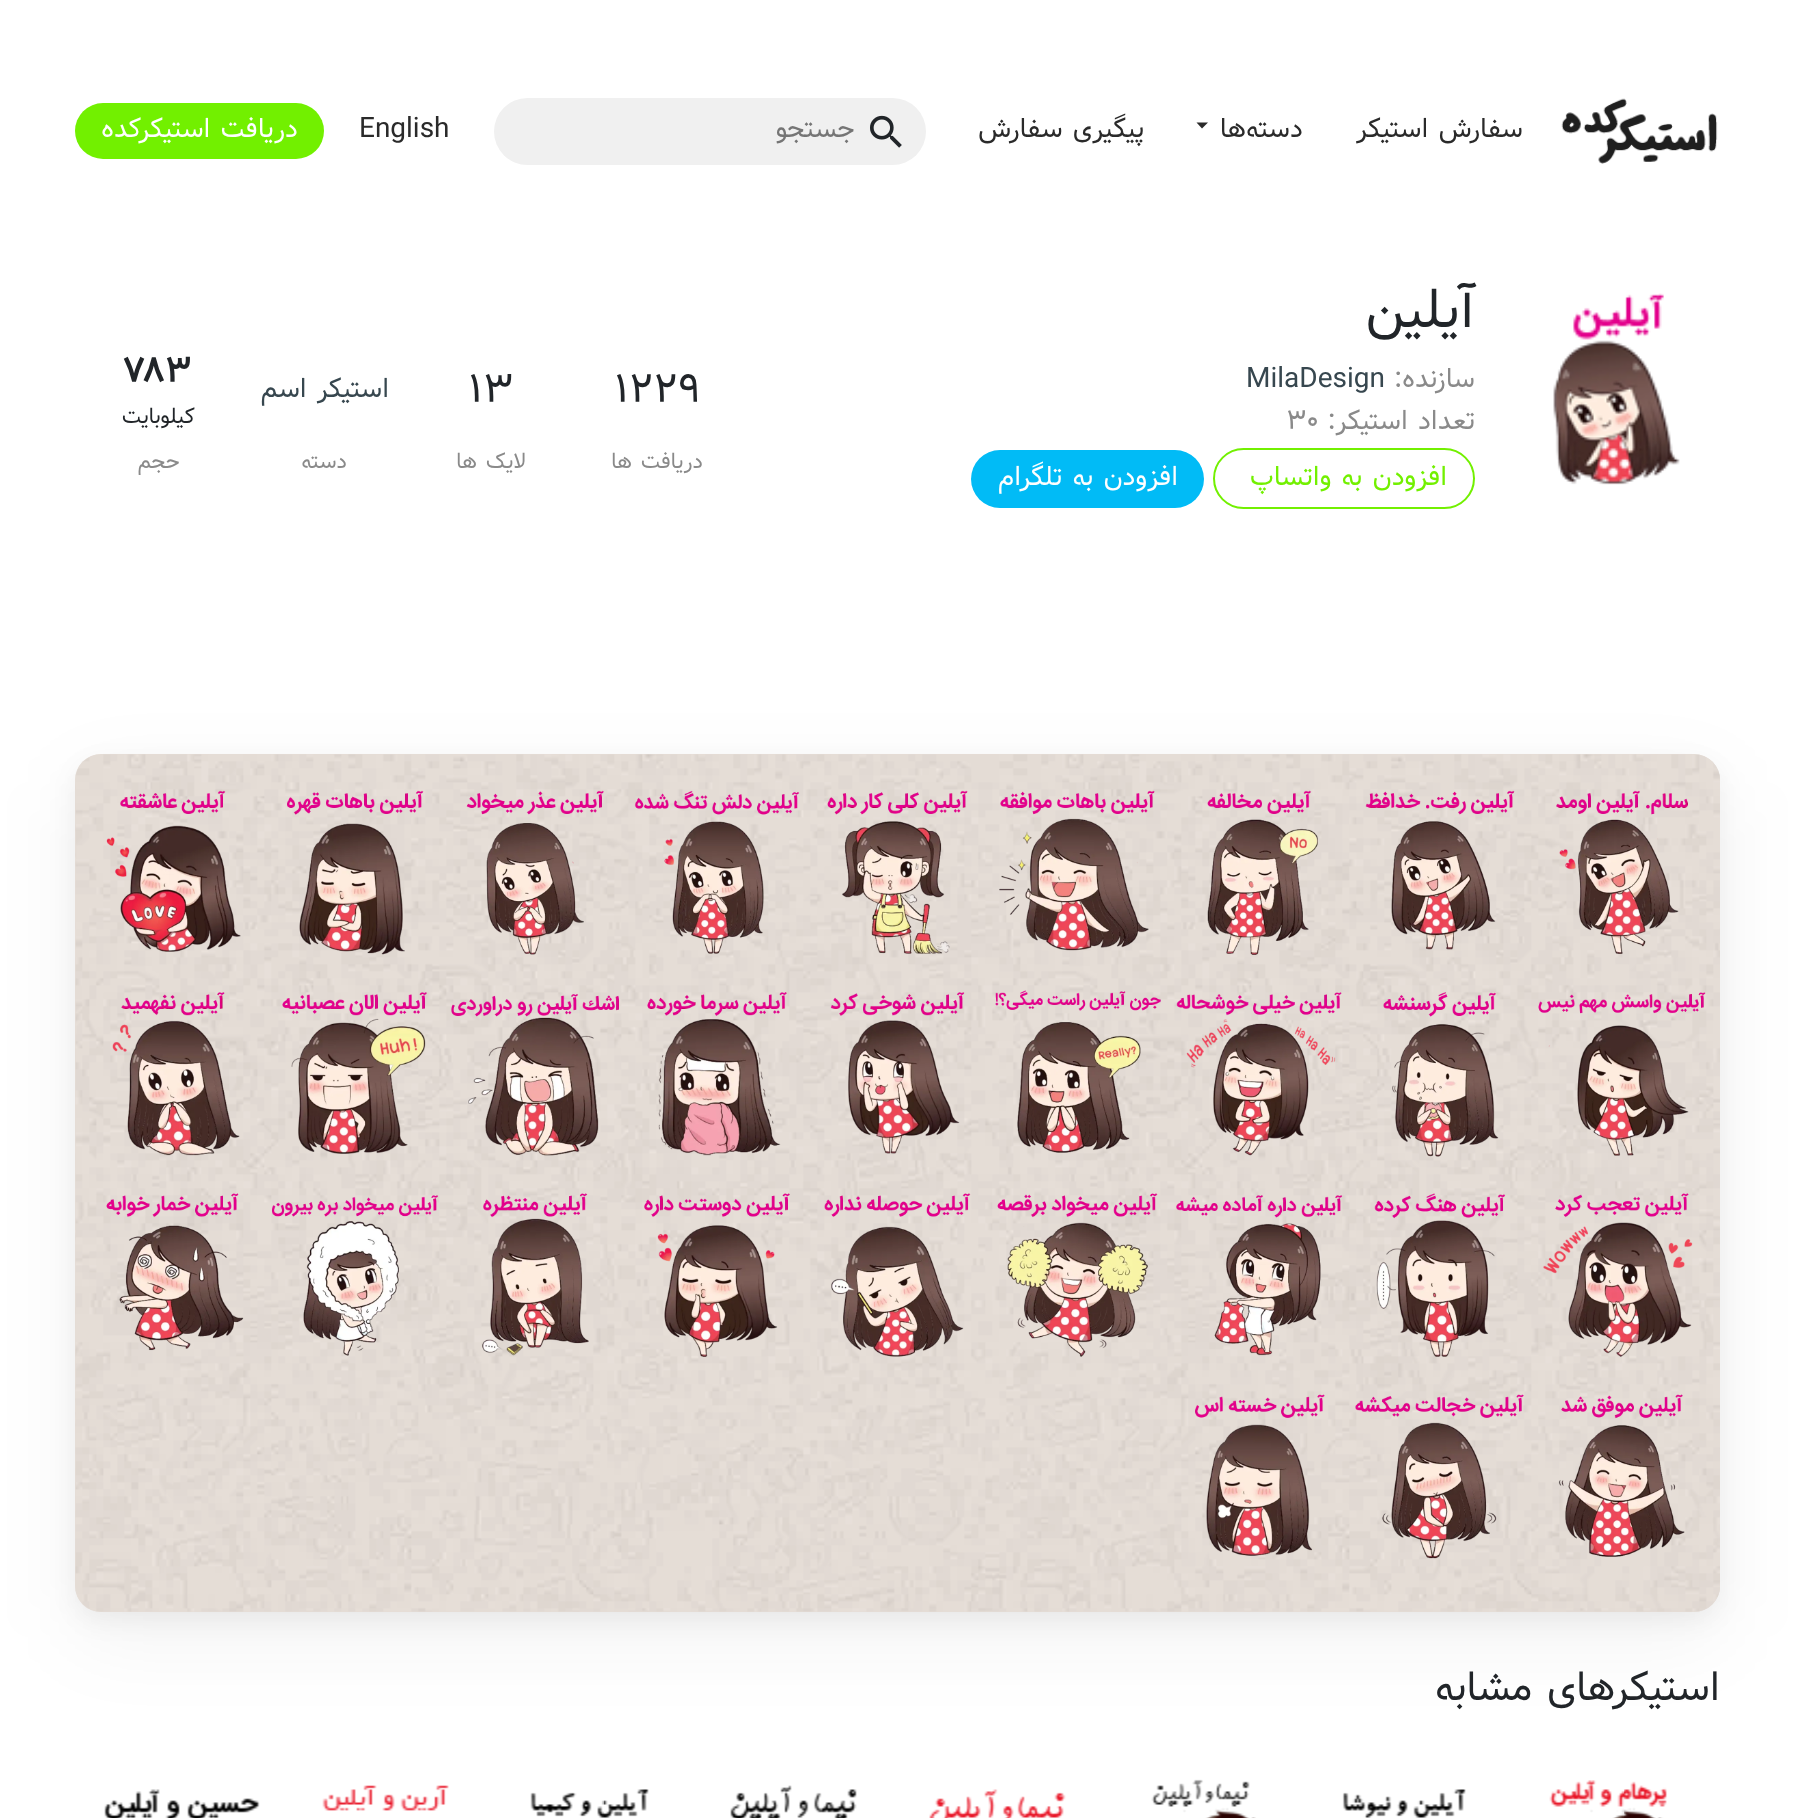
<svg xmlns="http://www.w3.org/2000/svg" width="1794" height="1818">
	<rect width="100%" height="100%" fill="#FFFFFF" />
	<image x="1561" y="98" width="157" height="66" href="assets/img1.png" />
	<g font-family="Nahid" font-size="28" direction="rtl" fill="#2A2A2A">
		<text x="1523" y="137" word-spacing="2">سفارش استیکر</text>
		<text x="1303" y="137">دسته‌ها</text>
	</g>
	<path d="M1196.5 122.5H1208L1202 128.5Z" fill="#2A2A2A" />
	<text x="1144" y="137" word-spacing="2" font-family="Nahid" font-size="28" direction="rtl" fill="#2A2A2A">پیگیری سفارش</text>
	<rect x="494" y="98" width="432" height="67" rx="33.5" fill="#F0F0F0" />
	<image x="870" y="115" width="32" height="33" href="assets/img2.png" />
	<text x="855" y="137" font-family="Nahid" font-size="28" direction="rtl" fill="#757575">جستجو</text>
	<text x="359" y="137" font-family="Nahid" font-size="28" fill="#2A2A2A">English</text>
	<rect x="75" y="103" width="249" height="56" rx="28" fill="#72F000" />
	<text x="298" y="137" word-spacing="2" font-family="Nahid" font-size="28" direction="rtl" fill="#FEFEFE">دریافت استیکرکده</text>
	<image x="1553" y="293" width="127" height="192" href="assets/img3.png" />
	<text x="1475" y="327" font-family="Nahid" font-size="56" direction="rtl" fill="#212529">آیلین</text>
	<text x="1475" y="387" font-family="Nahid" font-size="28" direction="rtl" fill="#8A8A8A">سازنده:</text>
	<text x="1246" y="387" font-family="Nahid" font-size="28" fill="#37474F">MilaDesign</text>
	<text x="1475" y="429" word-spacing="2" font-family="Nahid" font-size="28" direction="rtl" fill="#8A8A8A">تعداد استیکر:</text>
	<text x="1286" y="429" font-family="Nahid" font-size="28" fill="#8A8A8A">۳۰</text>
	<rect x="1214" y="449" width="260" height="59" rx="29.5" fill="none" stroke="#72F000" stroke-width="2" />
	<text x="1447" y="485" word-spacing="2" font-family="Nahid" font-size="28" direction="rtl" fill="#72F000">افزودن به واتساپ</text>
	<rect x="971" y="450" width="233" height="58" rx="29" fill="#01BBF6" />
	<text x="1178" y="485" word-spacing="2" font-family="Nahid" font-size="28" direction="rtl" fill="#FEFEFE">افزودن به تلگرام</text>
	<text x="614" y="402" font-family="Nahid" font-size="42" fill="#212529">۱۲۲۹</text>
	<text x="703" y="468" word-spacing="2" font-family="Nahid" font-size="22.5" direction="rtl" fill="#8A8A8A">دریافت ها</text>
	<text x="468" y="402" font-family="Nahid" font-size="42" fill="#212529">۱۳</text>
	<text x="526" y="468" word-spacing="2" font-family="Nahid" font-size="22.5" direction="rtl" fill="#8A8A8A">لایک ها</text>
	<text x="389" y="397" word-spacing="2" font-family="Nahid" font-size="28" direction="rtl" fill="#37474F">استیکر اسم</text>
	<text x="347" y="468" font-family="Nahid" font-size="22.5" direction="rtl" fill="#8A8A8A">دسته</text>
	<text x="125" y="382" font-family="Nahid" font-size="36" font-weight="700" fill="#212529">۷۸۳</text>
	<text x="195" y="423" font-family="Nahid" font-size="22.5" direction="rtl" fill="#212529">کیلوبایت</text>
	<text x="180" y="468" font-family="Nahid" font-size="22.5" direction="rtl" fill="#8A8A8A">حجم</text>
	<rect x="75" y="763" width="1645" height="858" rx="26" fill="#000000" fill-opacity="0.05" filter="blur(12px)" />
	<rect x="75" y="781" width="1645" height="857" rx="26" fill="#000000" fill-opacity="0.05" filter="blur(41px)" />
	<rect x="75" y="754" width="1645" height="858" rx="26" fill="#E5DCD5" />
	<image x="75" y="754" width="1645" height="858" href="assets/img4.png" />
	<image x="1556" y="790" width="132" height="164" href="assets/img5.png" />
	<image x="1365" y="790" width="150" height="160" href="assets/img6.png" />
	<image x="1207" y="790" width="111" height="165" href="assets/img7.png" />
	<image x="999" y="790" width="156" height="161" href="assets/img8.png" />
	<image x="827" y="790" width="141" height="164" href="assets/img9.png" />
	<image x="634" y="790" width="166" height="164" href="assets/img10.png" />
	<image x="466" y="790" width="138" height="165" href="assets/img11.png" />
	<image x="287" y="790" width="137" height="165" href="assets/img12.png" />
	<image x="106" y="790" width="135" height="162" href="assets/img13.png" />
	<image x="1538" y="992" width="168" height="164" href="assets/img14.png" />
	<image x="1383" y="992" width="116" height="165" href="assets/img15.png" />
	<image x="1176" y="992" width="166" height="164" href="assets/img16.png" />
	<image x="995" y="990" width="166" height="163" href="assets/img17.png" />
	<image x="830" y="992" width="135" height="162" href="assets/img18.png" />
	<image x="647" y="992" width="140" height="164" href="assets/img19.png" />
	<image x="451" y="994" width="168" height="162" href="assets/img20.png" />
	<image x="282" y="992" width="145" height="162" href="assets/img21.png" />
	<image x="112" y="992" width="128" height="164" href="assets/img22.png" />
	<image x="1543" y="1193" width="150" height="164" href="assets/img23.png" />
	<image x="1374" y="1193" width="132" height="164" href="assets/img24.png" />
	<image x="1176" y="1195" width="167" height="161" href="assets/img25.png" />
	<image x="997" y="1193" width="161" height="164" href="assets/img26.png" />
	<image x="824" y="1193" width="147" height="164" href="assets/img27.png" />
	<image x="644" y="1193" width="146" height="164" href="assets/img28.png" />
	<image x="482" y="1193" width="107" height="163" href="assets/img29.png" />
	<image x="272" y="1195" width="166" height="161" href="assets/img30.png" />
	<image x="106" y="1193" width="138" height="158" href="assets/img31.png" />
	<image x="1558" y="1394" width="127" height="163" href="assets/img32.png" />
	<image x="1355" y="1394" width="169" height="165" href="assets/img33.png" />
	<image x="1195" y="1394" width="130" height="162" href="assets/img34.png" />
	<text x="1720" y="1700" word-spacing="2" font-family="Nahid" font-size="42" direction="rtl" fill="#212529">استیکرهای مشابه</text>
	<image x="1549" y="1780" width="118" height="38" href="assets/img35.png" />
	<image x="1342" y="1789" width="124" height="29" href="assets/img36.png" />
	<image x="1151" y="1779" width="105" height="39" href="assets/img37.png" />
	<image x="929" y="1789" width="137" height="29" href="assets/img38.png" />
	<image x="730" y="1785" width="127" height="33" href="assets/img39.png" />
	<image x="530" y="1789" width="119" height="29" href="assets/img40.png" />
	<image x="322" y="1785" width="127" height="26" href="assets/img41.png" />
	<image x="104" y="1789" width="156" height="29" href="assets/img42.png" />
</svg>
